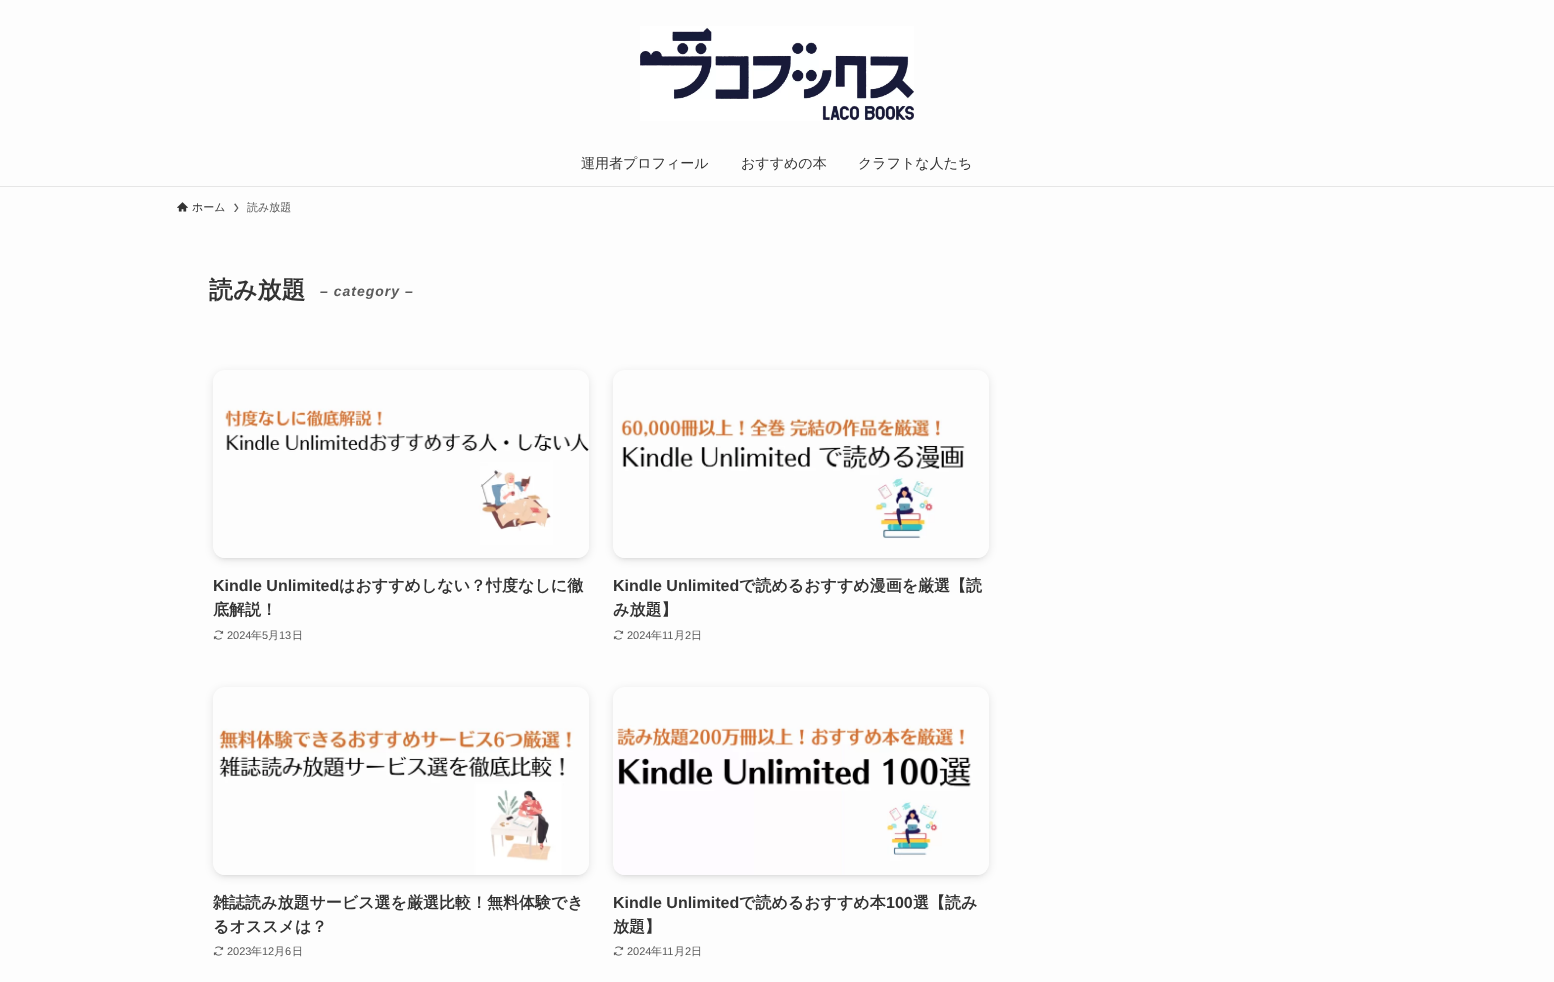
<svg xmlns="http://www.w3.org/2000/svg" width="1554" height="982">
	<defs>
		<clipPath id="clip1"><path d="M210 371H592V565H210ZM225 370H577C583.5 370 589 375.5 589 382V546C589 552.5 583.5 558 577 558H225C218.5 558 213 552.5 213 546V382C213 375.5 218.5 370 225 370Z" clip-rule="evenodd" /></clipPath>
		<clipPath id="clip2"><path d="M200 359H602V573H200ZM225 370H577C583.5 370 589 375.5 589 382V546C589 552.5 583.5 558 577 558H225C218.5 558 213 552.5 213 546V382C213 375.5 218.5 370 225 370Z" clip-rule="evenodd" /></clipPath>
		<clipPath id="clip3"><path d="M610 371H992V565H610ZM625 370H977C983.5 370 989 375.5 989 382V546C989 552.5 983.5 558 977 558H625C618.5 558 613 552.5 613 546V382C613 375.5 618.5 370 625 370Z" clip-rule="evenodd" /></clipPath>
		<clipPath id="clip4"><path d="M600 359H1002V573H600ZM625 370H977C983.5 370 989 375.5 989 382V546C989 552.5 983.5 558 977 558H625C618.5 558 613 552.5 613 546V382C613 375.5 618.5 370 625 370Z" clip-rule="evenodd" /></clipPath>
		<clipPath id="clip5"><path d="M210 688H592V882H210ZM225 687H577C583.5 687 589 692.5 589 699V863C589 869.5 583.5 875 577 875H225C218.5 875 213 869.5 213 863V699C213 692.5 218.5 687 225 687Z" clip-rule="evenodd" /></clipPath>
		<clipPath id="clip6"><path d="M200 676H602V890H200ZM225 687H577C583.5 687 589 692.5 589 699V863C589 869.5 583.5 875 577 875H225C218.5 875 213 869.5 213 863V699C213 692.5 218.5 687 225 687Z" clip-rule="evenodd" /></clipPath>
		<clipPath id="clip7"><path d="M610 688H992V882H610ZM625 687H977C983.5 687 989 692.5 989 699V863C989 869.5 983.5 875 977 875H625C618.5 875 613 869.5 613 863V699C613 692.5 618.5 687 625 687Z" clip-rule="evenodd" /></clipPath>
		<clipPath id="clip8"><path d="M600 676H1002V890H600ZM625 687H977C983.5 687 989 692.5 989 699V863C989 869.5 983.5 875 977 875H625C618.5 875 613 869.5 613 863V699C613 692.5 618.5 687 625 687Z" clip-rule="evenodd" /></clipPath>
	</defs>
	<rect width="100%" height="100%" fill="#FDFDFD" />
	<rect x="0" y="186" width="1554" height="1" fill="#E6E6E6" />
	<image x="640" y="26" width="274" height="95" href="assets/img1.png" />
	<g font-family="WenQuanYi Zen Hei" font-size="14" font-weight="500" fill="#333333">
		<text x="581" y="168">運用者プロフィール</text>
		<text x="741" y="168">おすすめの本</text>
		<text x="858" y="168">クラフトな人たち</text>
	</g>
	<image x="177" y="202" width="11" height="10" href="assets/img2.png" />
	<text x="192" y="211" font-family="WenQuanYi Zen Hei" font-size="11" font-weight="500" fill="#333333">ホーム</text>
	<path d="M235.5 203.5L234 204L237 208L234 212H235.5L238.5 208Z" fill="#5B5B5B" />
	<text x="247" y="211" font-family="WenQuanYi Zen Hei" font-size="11" font-weight="500" fill="#5B5B5B">読み放題</text>
	<text x="209" y="298" font-family="WenQuanYi Zen Hei" font-size="24" font-weight="700" fill="#333333">読み放題</text>
	<text x="320" y="296" font-family="Liberation Sans" font-size="14" font-weight="700" font-style="italic" letter-spacing="1" fill="#5B5B5B">– category –</text>
	<g clip-path="url(#clip1)">
		<rect x="217" y="378" width="368" height="180" rx="8" fill="#000000" fill-opacity="0.1" filter="blur(2px)" />
	</g>
	<g clip-path="url(#clip2)">
		<rect x="213" y="372" width="376" height="188" rx="12" fill="#000000" fill-opacity="0.1" filter="blur(4px)" />
	</g>
	<image x="216" y="408" width="373" height="150" href="assets/img3.png" />
	<text x="213" y="591" font-family="Liberation Sans" font-size="16" font-weight="700" fill="#333333">Kindle Unlimited</text>
	<g font-family="WenQuanYi Zen Hei" font-size="16" font-weight="700" fill="#333333">
		<text x="339" y="591">はおすすめしない？忖度なしに徹</text>
		<text x="213" y="615">底解説！</text>
	</g>
	<image x="213" y="630" width="11" height="10" href="assets/img4.png" />
	<text x="227" y="639" font-family="Liberation Sans" font-size="11" fill="#5B5B5B">2024</text>
	<text x="251" y="639" font-family="WenQuanYi Zen Hei" font-size="11" font-weight="500" fill="#5B5B5B">年</text>
	<text x="262" y="639" font-family="Liberation Sans" font-size="11" fill="#5B5B5B">5</text>
	<text x="268" y="639" font-family="WenQuanYi Zen Hei" font-size="11" font-weight="500" fill="#5B5B5B">月</text>
	<text x="279" y="639" font-family="Liberation Sans" font-size="11" fill="#5B5B5B">13</text>
	<text x="292" y="639" font-family="WenQuanYi Zen Hei" font-size="11" font-weight="500" fill="#5B5B5B">日</text>
	<g clip-path="url(#clip3)">
		<rect x="617" y="378" width="368" height="180" rx="8" fill="#000000" fill-opacity="0.1" filter="blur(2px)" />
	</g>
	<g clip-path="url(#clip4)">
		<rect x="613" y="372" width="376" height="188" rx="12" fill="#000000" fill-opacity="0.1" filter="blur(4px)" />
	</g>
	<image x="616" y="416" width="370" height="142" href="assets/img5.png" />
	<text x="613" y="591" font-family="Liberation Sans" font-size="16" font-weight="700" fill="#333333">Kindle Unlimited</text>
	<g font-family="WenQuanYi Zen Hei" font-size="16" font-weight="700" fill="#333333">
		<text x="739" y="591">で読めるおすすめ漫画を厳選【読</text>
		<text x="613" y="615">み放題】</text>
	</g>
	<image x="613" y="630" width="11" height="10" href="assets/img4.png" />
	<text x="627" y="639" font-family="Liberation Sans" font-size="11" fill="#5B5B5B">2024</text>
	<text x="651" y="639" font-family="WenQuanYi Zen Hei" font-size="11" font-weight="500" fill="#5B5B5B">年</text>
	<text x="662" y="639" font-family="Liberation Sans" font-size="11" fill="#5B5B5B">11</text>
	<text x="674" y="639" font-family="WenQuanYi Zen Hei" font-size="11" font-weight="500" fill="#5B5B5B">月</text>
	<text x="685" y="639" font-family="Liberation Sans" font-size="11" fill="#5B5B5B">2</text>
	<text x="691" y="639" font-family="WenQuanYi Zen Hei" font-size="11" font-weight="500" fill="#5B5B5B">日</text>
	<g clip-path="url(#clip5)">
		<rect x="217" y="695" width="368" height="180" rx="8" fill="#000000" fill-opacity="0.1" filter="blur(2px)" />
	</g>
	<g clip-path="url(#clip6)">
		<rect x="213" y="689" width="376" height="188" rx="12" fill="#000000" fill-opacity="0.1" filter="blur(4px)" />
	</g>
	<image x="216" y="728" width="370" height="147" href="assets/img6.png" />
	<g font-family="WenQuanYi Zen Hei" font-size="16" font-weight="700" fill="#333333">
		<text x="213" y="908">雑誌読み放題サービス選を厳選比較！無料体験でき</text>
		<text x="213" y="932">るオススメは？</text>
	</g>
	<image x="213" y="946" width="11" height="10" href="assets/img4.png" />
	<text x="227" y="955" font-family="Liberation Sans" font-size="11" fill="#5B5B5B">2023</text>
	<text x="251" y="955" font-family="WenQuanYi Zen Hei" font-size="11" font-weight="500" fill="#5B5B5B">年</text>
	<text x="262" y="955" font-family="Liberation Sans" font-size="11" fill="#5B5B5B">12</text>
	<text x="274" y="955" font-family="WenQuanYi Zen Hei" font-size="11" font-weight="500" fill="#5B5B5B">月</text>
	<text x="285" y="955" font-family="Liberation Sans" font-size="11" fill="#5B5B5B">6</text>
	<text x="292" y="955" font-family="WenQuanYi Zen Hei" font-size="11" font-weight="500" fill="#5B5B5B">日</text>
	<g clip-path="url(#clip7)">
		<rect x="617" y="695" width="368" height="180" rx="8" fill="#000000" fill-opacity="0.1" filter="blur(2px)" />
	</g>
	<g clip-path="url(#clip8)">
		<rect x="613" y="689" width="376" height="188" rx="12" fill="#000000" fill-opacity="0.1" filter="blur(4px)" />
	</g>
	<image x="614" y="725" width="372" height="150" href="assets/img7.png" />
	<text x="613" y="908" font-family="Liberation Sans" font-size="16" font-weight="700" fill="#333333">Kindle Unlimited</text>
	<text x="739" y="908" font-family="WenQuanYi Zen Hei" font-size="16" font-weight="700" fill="#333333">で読めるおすすめ本</text>
	<text x="886" y="908" font-family="Liberation Sans" font-size="16" font-weight="700" fill="#333333">100</text>
	<g font-family="WenQuanYi Zen Hei" font-size="16" font-weight="700" fill="#333333">
		<text x="913" y="908">選【読み</text>
		<text x="613" y="932">放題】</text>
	</g>
	<image x="613" y="946" width="11" height="10" href="assets/img4.png" />
	<text x="627" y="955" font-family="Liberation Sans" font-size="11" fill="#5B5B5B">2024</text>
	<text x="651" y="955" font-family="WenQuanYi Zen Hei" font-size="11" font-weight="500" fill="#5B5B5B">年</text>
	<text x="662" y="955" font-family="Liberation Sans" font-size="11" fill="#5B5B5B">11</text>
	<text x="674" y="955" font-family="WenQuanYi Zen Hei" font-size="11" font-weight="500" fill="#5B5B5B">月</text>
	<text x="685" y="955" font-family="Liberation Sans" font-size="11" fill="#5B5B5B">2</text>
	<text x="691" y="955" font-family="WenQuanYi Zen Hei" font-size="11" font-weight="500" fill="#5B5B5B">日</text>
</svg>
